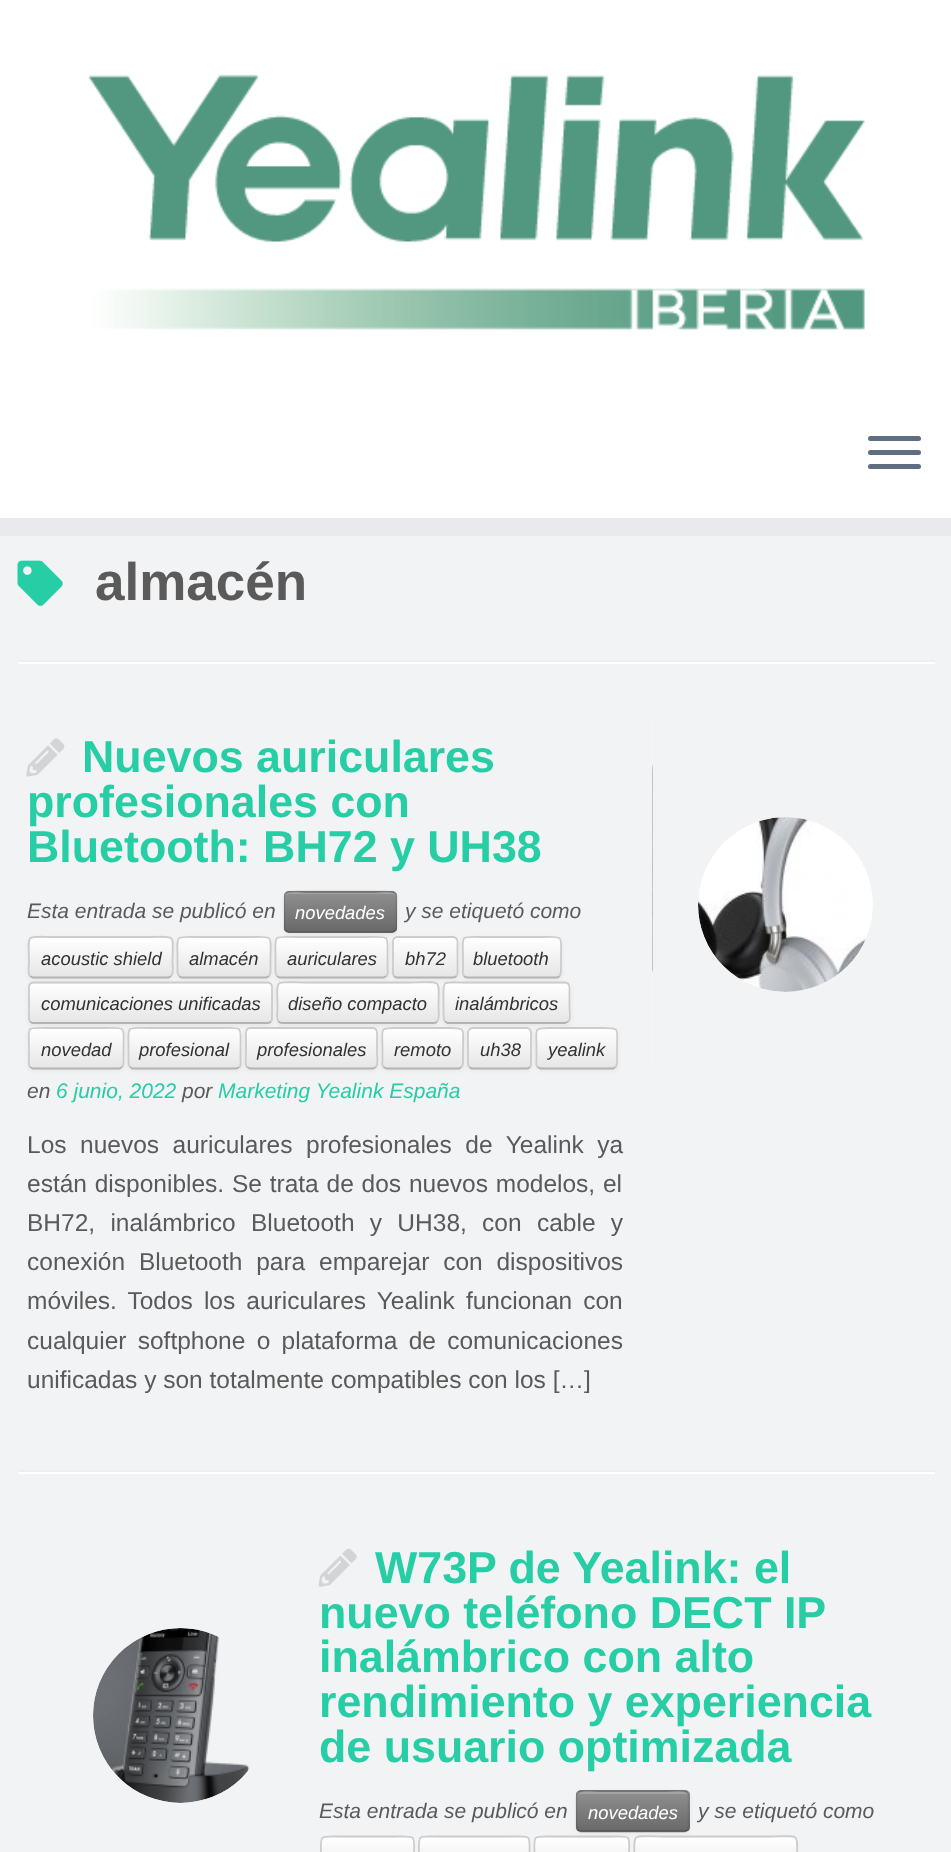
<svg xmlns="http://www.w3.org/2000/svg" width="951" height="1852">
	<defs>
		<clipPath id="clip1"><rect x="284" y="891" width="113" height="42" rx="5" /></clipPath>
		<linearGradient id="g1" gradientUnits="userSpaceOnUse" x1="340" y1="893" x2="340" y2="931"><stop offset="0" stop-color="#8F8F8F" /><stop offset="1" stop-color="#696969" /></linearGradient>
		<clipPath id="clip2"><rect x="28" y="936" width="145" height="42" rx="5" /></clipPath>
		<linearGradient id="g2" gradientUnits="userSpaceOnUse" x1="101" y1="938" x2="101" y2="977"><stop offset="0" stop-color="#FFFFFF" /><stop offset="1" stop-color="#E6E6E6" /></linearGradient>
		<clipPath id="clip3"><rect x="177" y="936" width="94" height="42" rx="5" /></clipPath>
		<linearGradient id="g3" gradientUnits="userSpaceOnUse" x1="224" y1="938" x2="224" y2="977"><stop offset="0" stop-color="#FFFFFF" /><stop offset="1" stop-color="#E6E6E6" /></linearGradient>
		<clipPath id="clip4"><rect x="275" y="936" width="114" height="42" rx="5" /></clipPath>
		<linearGradient id="g4" gradientUnits="userSpaceOnUse" x1="332" y1="938" x2="332" y2="977"><stop offset="0" stop-color="#FFFFFF" /><stop offset="1" stop-color="#E6E6E6" /></linearGradient>
		<clipPath id="clip5"><rect x="392" y="936" width="67" height="42" rx="5" /></clipPath>
		<linearGradient id="g5" gradientUnits="userSpaceOnUse" x1="425" y1="938" x2="425" y2="977"><stop offset="0" stop-color="#FFFFFF" /><stop offset="1" stop-color="#E6E6E6" /></linearGradient>
		<clipPath id="clip6"><rect x="462" y="936" width="100" height="42" rx="5" /></clipPath>
		<linearGradient id="g6" gradientUnits="userSpaceOnUse" x1="512" y1="938" x2="512" y2="977"><stop offset="0" stop-color="#FFFFFF" /><stop offset="1" stop-color="#E6E6E6" /></linearGradient>
		<clipPath id="clip7"><rect x="28" y="982" width="245" height="42" rx="5" /></clipPath>
		<linearGradient id="g7" gradientUnits="userSpaceOnUse" x1="151" y1="984" x2="151" y2="1022"><stop offset="0" stop-color="#FFFFFF" /><stop offset="1" stop-color="#E6E6E6" /></linearGradient>
		<clipPath id="clip8"><rect x="277" y="982" width="162" height="42" rx="5" /></clipPath>
		<linearGradient id="g8" gradientUnits="userSpaceOnUse" x1="358" y1="984" x2="358" y2="1022"><stop offset="0" stop-color="#FFFFFF" /><stop offset="1" stop-color="#E6E6E6" /></linearGradient>
		<clipPath id="clip9"><rect x="443" y="982" width="128" height="42" rx="5" /></clipPath>
		<linearGradient id="g9" gradientUnits="userSpaceOnUse" x1="507" y1="984" x2="507" y2="1022"><stop offset="0" stop-color="#FFFFFF" /><stop offset="1" stop-color="#E6E6E6" /></linearGradient>
		<clipPath id="clip10"><rect x="28" y="1027" width="96" height="42" rx="5" /></clipPath>
		<linearGradient id="g10" gradientUnits="userSpaceOnUse" x1="76" y1="1029" x2="76" y2="1068"><stop offset="0" stop-color="#FFFFFF" /><stop offset="1" stop-color="#E6E6E6" /></linearGradient>
		<clipPath id="clip11"><rect x="128" y="1027" width="114" height="42" rx="5" /></clipPath>
		<linearGradient id="g11" gradientUnits="userSpaceOnUse" x1="185" y1="1029" x2="185" y2="1068"><stop offset="0" stop-color="#FFFFFF" /><stop offset="1" stop-color="#E6E6E6" /></linearGradient>
		<clipPath id="clip12"><rect x="245" y="1027" width="133" height="42" rx="5" /></clipPath>
		<linearGradient id="g12" gradientUnits="userSpaceOnUse" x1="312" y1="1029" x2="312" y2="1068"><stop offset="0" stop-color="#FFFFFF" /><stop offset="1" stop-color="#E6E6E6" /></linearGradient>
		<clipPath id="clip13"><rect x="382" y="1027" width="82" height="42" rx="5" /></clipPath>
		<linearGradient id="g13" gradientUnits="userSpaceOnUse" x1="423" y1="1029" x2="423" y2="1068"><stop offset="0" stop-color="#FFFFFF" /><stop offset="1" stop-color="#E6E6E6" /></linearGradient>
		<clipPath id="clip14"><rect x="467" y="1027" width="65" height="42" rx="5" /></clipPath>
		<linearGradient id="g14" gradientUnits="userSpaceOnUse" x1="500" y1="1029" x2="500" y2="1068"><stop offset="0" stop-color="#FFFFFF" /><stop offset="1" stop-color="#E6E6E6" /></linearGradient>
		<clipPath id="clip15"><rect x="536" y="1027" width="82" height="42" rx="5" /></clipPath>
		<linearGradient id="g15" gradientUnits="userSpaceOnUse" x1="577" y1="1029" x2="577" y2="1068"><stop offset="0" stop-color="#FFFFFF" /><stop offset="1" stop-color="#E6E6E6" /></linearGradient>
		<clipPath id="clip16"><rect x="653" y="716" width="229" height="350" /></clipPath>
		<clipPath id="clip17"><rect x="320" y="1836" width="95" height="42" rx="5" /></clipPath>
		<linearGradient id="g16" gradientUnits="userSpaceOnUse" x1="368" y1="1838" x2="368" y2="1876"><stop offset="0" stop-color="#FFFFFF" /><stop offset="1" stop-color="#E6E6E6" /></linearGradient>
		<clipPath id="clip18"><rect x="418" y="1836" width="112" height="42" rx="5" /></clipPath>
		<linearGradient id="g17" gradientUnits="userSpaceOnUse" x1="474" y1="1838" x2="474" y2="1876"><stop offset="0" stop-color="#FFFFFF" /><stop offset="1" stop-color="#E6E6E6" /></linearGradient>
		<clipPath id="clip19"><rect x="47" y="1526" width="230" height="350" /></clipPath>
		<clipPath id="clip20"><rect x="576" y="1790" width="114" height="42" rx="5" /></clipPath>
		<linearGradient id="g18" gradientUnits="userSpaceOnUse" x1="633" y1="1792" x2="633" y2="1831"><stop offset="0" stop-color="#8F8F8F" /><stop offset="1" stop-color="#696969" /></linearGradient>
		<clipPath id="clip21"><rect x="534" y="1836" width="96" height="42" rx="5" /></clipPath>
		<linearGradient id="g19" gradientUnits="userSpaceOnUse" x1="582" y1="1838" x2="582" y2="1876"><stop offset="0" stop-color="#FFFFFF" /><stop offset="1" stop-color="#E6E6E6" /></linearGradient>
		<clipPath id="clip22"><rect x="634" y="1836" width="164" height="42" rx="5" /></clipPath>
		<linearGradient id="g20" gradientUnits="userSpaceOnUse" x1="716" y1="1838" x2="716" y2="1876"><stop offset="0" stop-color="#FFFFFF" /><stop offset="1" stop-color="#E6E6E6" /></linearGradient>
	</defs>
	<rect width="100%" height="100%" fill="#F2F3F5" />
	<rect x="0" y="0" width="951" height="518" fill="#FFFFFF" />
	<rect x="0" y="518" width="951" height="18" fill="#E9EAEE" />
	<image x="88" y="74" width="777" height="256" href="assets/img1.png" />
	<rect x="868" y="436" width="53" height="5" rx="2.5" fill="#5F6F81" />
	<rect x="868" y="450" width="53" height="5" rx="2.5" fill="#5F6F81" />
	<rect x="868" y="464" width="53" height="5" rx="2.5" fill="#5F6F81" />
	<image x="17" y="560" width="46" height="46" href="assets/img2.png" />
	<text x="95" y="600" font-family="Liberation Sans" font-size="53" font-weight="700" fill="#5A5A5A">almacén</text>
	<rect x="18" y="660" width="917" height="2" fill="#EEEEEE" />
	<rect x="18" y="662" width="917" height="2" fill="#FFFFFF" />
	<image x="26" y="738" width="39" height="39" href="assets/img3.png" />
	<g font-family="Liberation Sans" font-size="44.75" font-weight="700" fill="#27CDA5">
		<text x="82" y="772">Nuevos auriculares</text>
		<text x="27" y="817">profesionales con</text>
		<text x="27" y="862">Bluetooth: BH72 y UH38</text>
	</g>
	<text x="27" y="918" font-family="Liberation Sans" font-size="21" font-style="italic" fill="#5A5A5A">Esta entrada se publicó en</text>
	<rect x="284" y="893" width="113" height="42" rx="5" fill="#000000" fill-opacity="0.05" filter="blur(2px)" />
	<rect x="284" y="891" width="113" height="42" rx="5" fill="#808080" />
	<g clip-path="url(#clip1)">
		<rect x="284" y="893" width="113" height="38" fill="url(#g1)" />
	</g>
	<path d="M289 894H392C394 894 396 896 396 898C396 888 378 893 375 893H306C303 893 285 888 285 898C285 896 287 894 289 894Z" fill="#FFFFFF" fill-opacity="0.2" />
	<path d="M395 930.5L392.5 932H288.5L285.5 930.5" fill="none" stroke="#000000" stroke-opacity="0.25" stroke-width="1.8" />
	<path d="M285.5 930.5C283.5 928.5 284.5 924.5 284.5 922V912C284.5 888 281 891.5 306 891.5H375C400 891.5 396.5 888 396.5 912V922C396.5 924.5 397 928.5 395 930.5" fill="none" stroke="#000000" stroke-opacity="0.1" stroke-width="1.8" />
	<text x="295" y="919" font-family="Liberation Sans" font-size="18.4" font-style="italic" fill="#FFFFFF">novedades</text>
	<text x="405" y="918" font-family="Liberation Sans" font-size="21" font-style="italic" fill="#5A5A5A">y se etiquetó como</text>
	<rect x="28" y="938" width="145" height="42" rx="5" fill="#000000" fill-opacity="0.05" filter="blur(2px)" />
	<rect x="28" y="936" width="145" height="42" rx="5" fill="#F5F5F5" />
	<g clip-path="url(#clip2)">
		<rect x="28" y="938" width="145" height="39" fill="url(#g2)" />
	</g>
	<path d="M171 976L168.5 977.5H55.5H33L30 976" fill="none" stroke="#B3B3B3" stroke-width="1.8" />
	<path d="M30 976C27.5 973.5 29 965.5 29 962.5C29 932 23.5 937 55.5 937H145.5C178 937 172.5 932 172.5 962.5C172.5 965.5 174 973.5 171 976" fill="none" stroke="#CCCCCC" stroke-width="1.8" />
	<text x="41" y="965" font-family="Liberation Sans" font-size="18.4" font-style="italic" fill="#333333">acoustic shield</text>
	<rect x="177" y="938" width="94" height="42" rx="5" fill="#000000" fill-opacity="0.05" filter="blur(2px)" />
	<rect x="177" y="936" width="94" height="42" rx="5" fill="#F5F5F5" />
	<g clip-path="url(#clip3)">
		<rect x="177" y="938" width="94" height="39" fill="url(#g3)" />
	</g>
	<path d="M269 976L266.5 977.5H181.5L179 976" fill="none" stroke="#B3B3B3" stroke-width="1.8" />
	<path d="M179 976C177 974 177.5 970 177.5 968V957C177.5 935 174 937 196 937H252C274 937 270.5 935 270.5 957V968C270.5 970 271 974 269 976" fill="none" stroke="#CCCCCC" stroke-width="1.8" />
	<text x="189" y="965" font-family="Liberation Sans" font-size="18.4" font-style="italic" fill="#333333">almacén</text>
	<rect x="275" y="938" width="114" height="42" rx="5" fill="#000000" fill-opacity="0.05" filter="blur(2px)" />
	<rect x="275" y="936" width="114" height="42" rx="5" fill="#F5F5F5" />
	<g clip-path="url(#clip4)">
		<rect x="275" y="938" width="114" height="39" fill="url(#g4)" />
	</g>
	<path d="M386.5 976L383.5 977.5H279.5L277 976" fill="none" stroke="#B3B3B3" stroke-width="1.8" />
	<path d="M277 976C275 974 275.5 970 275.5 968V957C275.5 933.5 272 937 297 937H366C391 937 387.5 933.5 387.5 957V968C387.5 970 388.5 974 386.5 976" fill="none" stroke="#CCCCCC" stroke-width="1.8" />
	<text x="287" y="965" font-family="Liberation Sans" font-size="18.4" font-style="italic" fill="#333333">auriculares</text>
	<rect x="392" y="938" width="67" height="42" rx="5" fill="#000000" fill-opacity="0.05" filter="blur(2px)" />
	<rect x="392" y="936" width="67" height="42" rx="5" fill="#F5F5F5" />
	<g clip-path="url(#clip5)">
		<rect x="392" y="938" width="67" height="39" fill="url(#g5)" />
	</g>
	<path d="M456.5 976C455.5 977 454.5 977.5 453 977.5H397C396 977.5 395 977 394 976" fill="none" stroke="#B3B3B3" stroke-width="1.8" />
	<path d="M394 976C393.5 975.5 393 974 393 973V941.5C393 940.5 393.5 939 394 938.5C395 937.5 396 937 397 937H453C454.5 937 455.5 937.5 456.5 938.5C457 939 457.5 940.5 457.5 941.5V973C457.5 974 457 975.5 456.5 976" fill="none" stroke="#CCCCCC" stroke-width="1.8" />
	<text x="405" y="965" font-family="Liberation Sans" font-size="18.4" font-style="italic" fill="#333333">bh72</text>
	<rect x="462" y="938" width="100" height="42" rx="5" fill="#000000" fill-opacity="0.05" filter="blur(2px)" />
	<rect x="462" y="936" width="100" height="42" rx="5" fill="#F5F5F5" />
	<g clip-path="url(#clip6)">
		<rect x="462" y="938" width="100" height="39" fill="url(#g6)" />
	</g>
	<path d="M559.5 976C559 977 557.5 977.5 556.5 977.5H467C466 977.5 465 977 464 976" fill="none" stroke="#B3B3B3" stroke-width="1.8" />
	<path d="M464 976C462 974 463 970 463 968V957C463 934.5 459 937 482 937H541.5C564.5 937 561 934.5 561 957V968C561 970 561.5 974 559.5 976" fill="none" stroke="#CCCCCC" stroke-width="1.8" />
	<text x="473" y="965" font-family="Liberation Sans" font-size="18.4" font-style="italic" fill="#333333">bluetooth</text>
	<rect x="28" y="984" width="245" height="42" rx="5" fill="#000000" fill-opacity="0.05" filter="blur(2px)" />
	<rect x="28" y="982" width="245" height="42" rx="5" fill="#F5F5F5" />
	<g clip-path="url(#clip7)">
		<rect x="28" y="984" width="245" height="38" fill="url(#g7)" />
	</g>
	<path d="M271 1021.5C270 1022.5 269 1023 268 1023H33C32 1023 31 1022.5 30 1021.5" fill="none" stroke="#B3B3B3" stroke-width="1.8" />
	<path d="M30 1021.5C29.5 1021 29 1019.5 29 1018.5V987C29 986 29.5 984.5 30 984C31 983 32 982.5 33 982.5H268C269 982.5 270 983 271 984C271.5 984.5 272 986 272 987V1018.5C272 1019.5 271.5 1021 271 1021.5" fill="none" stroke="#CCCCCC" stroke-width="1.8" />
	<text x="41" y="1010" font-family="Liberation Sans" font-size="18.4" font-style="italic" fill="#333333">comunicaciones unificadas</text>
	<rect x="277" y="984" width="162" height="42" rx="5" fill="#000000" fill-opacity="0.05" filter="blur(2px)" />
	<rect x="277" y="982" width="162" height="42" rx="5" fill="#F5F5F5" />
	<g clip-path="url(#clip8)">
		<rect x="277" y="984" width="162" height="38" fill="url(#g8)" />
	</g>
	<path d="M437 1021.5C436.5 1022.5 435 1023 434 1023H282C280.5 1023 279.5 1022.5 278.5 1021.5" fill="none" stroke="#B3B3B3" stroke-width="1.8" />
	<path d="M278.5 1021.5C276 1019 277.5 1011 277.5 1008C277.5 976.5 272 982.5 307 982.5H408.5C443.5 982.5 438.5 976.5 438.5 1008C438.5 1011 440 1019 437 1021.5" fill="none" stroke="#CCCCCC" stroke-width="1.8" />
	<text x="288" y="1010" font-family="Liberation Sans" font-size="18.4" font-style="italic" fill="#333333">diseño compacto</text>
	<rect x="443" y="984" width="128" height="42" rx="5" fill="#000000" fill-opacity="0.05" filter="blur(2px)" />
	<rect x="443" y="982" width="128" height="42" rx="5" fill="#F5F5F5" />
	<g clip-path="url(#clip9)">
		<rect x="443" y="984" width="128" height="38" fill="url(#g9)" />
	</g>
	<path d="M568.5 1021.5L565 1023H447.5L445 1021.5" fill="none" stroke="#B3B3B3" stroke-width="1.8" />
	<path d="M445 1021.5C443 1019.5 443.5 1015.5 443.5 1013V1003C443.5 978 440.5 982.5 467.5 982.5H565C570.5 982.5 569.5 989 569.5 992V1008C569.5 1011 571 1019 568.5 1021.5" fill="none" stroke="#CCCCCC" stroke-width="1.8" />
	<text x="455" y="1010" font-family="Liberation Sans" font-size="18.4" font-style="italic" fill="#333333">inalámbricos</text>
	<rect x="28" y="1029" width="96" height="42" rx="5" fill="#000000" fill-opacity="0.05" filter="blur(2px)" />
	<rect x="28" y="1027" width="96" height="42" rx="5" fill="#F5F5F5" />
	<g clip-path="url(#clip10)">
		<rect x="28" y="1029" width="96" height="39" fill="url(#g10)" />
	</g>
	<path d="M33 1031H119C123 1031 122 1037 122 1039V1067C123 1066 123 1065 123 1064V1033C123 1031 121 1029 119 1029H34C32 1029 30 1031 30 1033V1034C30 1032 31 1031 33 1031Z" fill="#FFFFFF" fill-opacity="0.2" />
	<path d="M122 1067L119.5 1068.5H33L30 1067" fill="none" stroke="#B3B3B3" stroke-width="1.8" />
	<path d="M30 1067C28 1065 29 1061 29 1059V1048C29 1025.5 25 1028 47.5 1028H104.5C127 1028 123.5 1025.5 123.5 1048V1059C123.5 1061 124 1065 122 1067" fill="none" stroke="#CCCCCC" stroke-width="1.8" />
	<text x="41" y="1056" font-family="Liberation Sans" font-size="18.4" font-style="italic" fill="#333333">novedad</text>
	<rect x="128" y="1029" width="114" height="42" rx="5" fill="#000000" fill-opacity="0.05" filter="blur(2px)" />
	<rect x="128" y="1027" width="114" height="42" rx="5" fill="#F5F5F5" />
	<g clip-path="url(#clip11)">
		<rect x="128" y="1029" width="114" height="39" fill="url(#g11)" />
	</g>
	<path d="M239.5 1067L236.5 1068.5H132.5L130 1067" fill="none" stroke="#B3B3B3" stroke-width="1.8" />
	<path d="M130 1067C128 1065 128.5 1061 128.5 1059V1048C128.5 1024.5 125 1028 150 1028H219C244 1028 240.5 1024.5 240.5 1048V1059C240.5 1061 241.5 1065 239.5 1067" fill="none" stroke="#CCCCCC" stroke-width="1.8" />
	<text x="139" y="1056" font-family="Liberation Sans" font-size="18.4" font-style="italic" fill="#333333">profesional</text>
	<rect x="245" y="1029" width="133" height="42" rx="5" fill="#000000" fill-opacity="0.05" filter="blur(2px)" />
	<rect x="245" y="1027" width="133" height="42" rx="5" fill="#F5F5F5" />
	<g clip-path="url(#clip12)">
		<rect x="245" y="1029" width="133" height="39" fill="url(#g12)" />
	</g>
	<path d="M376 1067L373 1068.5H270.5H250L247 1067" fill="none" stroke="#B3B3B3" stroke-width="1.8" />
	<path d="M247 1067C244.5 1064.5 246 1056.5 246 1053.5V1038C246 1034.5 245 1028 250 1028H373C378 1028 377 1034.5 377 1038V1053.5C377 1056.5 378.5 1064.5 376 1067" fill="none" stroke="#CCCCCC" stroke-width="1.8" />
	<text x="257" y="1056" font-family="Liberation Sans" font-size="18.4" font-style="italic" fill="#333333">profesionales</text>
	<rect x="382" y="1029" width="82" height="42" rx="5" fill="#000000" fill-opacity="0.05" filter="blur(2px)" />
	<rect x="382" y="1027" width="82" height="42" rx="5" fill="#F5F5F5" />
	<g clip-path="url(#clip13)">
		<rect x="382" y="1029" width="82" height="39" fill="url(#g13)" />
	</g>
	<path d="M461.5 1067L459 1068.5H386.5L383.5 1067" fill="none" stroke="#B3B3B3" stroke-width="1.8" />
	<path d="M383.5 1067C381.5 1065 382.5 1061 382.5 1059V1048C382.5 1027 378.5 1028 398.5 1028H446.5C467 1028 463 1027 463 1048V1059C463 1061 463.5 1065 461.5 1067" fill="none" stroke="#CCCCCC" stroke-width="1.8" />
	<text x="394" y="1056" font-family="Liberation Sans" font-size="18.4" font-style="italic" fill="#333333">remoto</text>
	<rect x="467" y="1029" width="65" height="42" rx="5" fill="#000000" fill-opacity="0.05" filter="blur(2px)" />
	<rect x="467" y="1027" width="65" height="42" rx="5" fill="#F5F5F5" />
	<g clip-path="url(#clip14)">
		<rect x="467" y="1029" width="65" height="39" fill="url(#g14)" />
	</g>
	<path d="M530 1067C529 1068 528 1068.5 527 1068.5H472.5C471.5 1068.5 470 1068 469.5 1067" fill="none" stroke="#B3B3B3" stroke-width="1.8" />
	<path d="M469.5 1067C468.5 1066.5 468 1065 468 1064V1032.5C468 1031.5 468.5 1030 469.5 1029.5C470 1028.5 471.5 1028 472.5 1028H527C528 1028 529 1028.5 530 1029.5C530.5 1030 531 1031.5 531 1032.5V1064C531 1065 530.5 1066.5 530 1067" fill="none" stroke="#CCCCCC" stroke-width="1.8" />
	<text x="480" y="1056" font-family="Liberation Sans" font-size="18.4" font-style="italic" fill="#333333">uh38</text>
	<rect x="536" y="1029" width="82" height="42" rx="5" fill="#000000" fill-opacity="0.05" filter="blur(2px)" />
	<rect x="536" y="1027" width="82" height="42" rx="5" fill="#F5F5F5" />
	<g clip-path="url(#clip15)">
		<rect x="536" y="1029" width="82" height="39" fill="url(#g15)" />
	</g>
	<path d="M615.5 1067L613 1068.5H540.5L537.5 1067" fill="none" stroke="#B3B3B3" stroke-width="1.8" />
	<path d="M537.5 1067C535.5 1065 536.5 1061 536.5 1059V1048C536.5 1027 532.5 1028 552.5 1028H600.5C621 1028 617 1027 617 1048V1059C617 1061 617.5 1065 615.5 1067" fill="none" stroke="#CCCCCC" stroke-width="1.8" />
	<text x="548" y="1056" font-family="Liberation Sans" font-size="18.4" font-style="italic" fill="#333333">yealink</text>
	<text x="27" y="1098" font-family="Liberation Sans" font-size="21" font-style="italic" fill="#5A5A5A">en</text>
	<text x="56" y="1098" font-family="Liberation Sans" font-size="21" font-style="italic" fill="#27CDA5">6 junio, 2022</text>
	<text x="182" y="1098" font-family="Liberation Sans" font-size="21" font-style="italic" fill="#5A5A5A">por</text>
	<text x="218" y="1098" font-family="Liberation Sans" font-size="21" font-style="italic" fill="#27CDA5">Marketing Yealink España</text>
	<g font-family="Liberation Sans" font-size="24.5" fill="#5A5A5A">
		<text x="27" y="1153" word-spacing="6.75">Los nuevos auriculares profesionales de Yealink ya</text>
		<text x="27" y="1192" word-spacing="1">están disponibles. Se trata de dos nuevos modelos, el</text>
		<text x="27" y="1231" word-spacing="8.5">BH72, inalámbrico Bluetooth y UH38, con cable y</text>
		<text x="27" y="1270" word-spacing="7">conexión Bluetooth para emparejar con dispositivos</text>
		<text x="27" y="1309" word-spacing="4.25">móviles. Todos los auriculares Yealink funcionan con</text>
		<text x="27" y="1349" word-spacing="4.5">cualquier softphone o plataforma de comunicaciones</text>
		<text x="27" y="1388">unificadas y son totalmente compatibles con los […]</text>
	</g>
	<image x="652" y="716" width="221" height="346" href="assets/img4.png" />
	<g clip-path="url(#clip16)">
		<circle cx="785.5" cy="904.5" r="178.5" fill="none" stroke="#F2F3F5" stroke-width="182" />
		<circle cx="785.5" cy="904.5" r="178.5" fill="none" stroke="#F2F3F5" stroke-width="182" />
	</g>
	<rect x="18" y="1470" width="917" height="2" fill="#EEEEEE" />
	<rect x="18" y="1472" width="917" height="2" fill="#FFFFFF" />
	<image x="93" y="1628" width="157" height="175" href="assets/img5.png" />
	<image x="318" y="1548" width="39" height="39" href="assets/img6.png" />
	<g font-family="Liberation Sans" font-size="44.75" font-weight="700" fill="#27CDA5">
		<text x="375" y="1583">W73P de Yealink: el</text>
		<text x="319" y="1628">nuevo teléfono DECT IP</text>
		<text x="319" y="1672">inalámbrico con alto</text>
		<text x="319" y="1717">rendimiento y experiencia</text>
		<text x="319" y="1762">de usuario optimizada</text>
	</g>
	<text x="319" y="1818" font-family="Liberation Sans" font-size="21" font-style="italic" fill="#5A5A5A">Esta entrada se publicó en</text>
	<rect x="320" y="1836" width="95" height="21" rx="5" fill="#F5F5F5" />
	<g clip-path="url(#clip17)">
		<rect x="320" y="1838" width="95" height="14" fill="url(#g16)" />
	</g>
	<path d="M322.5 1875.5C320.5 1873.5 321 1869.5 321 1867V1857C321 1834.5 317.5 1836.5 339.5 1836.5H395.5C417.5 1836.5 414 1834.5 414 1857V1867C414 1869.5 414.5 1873.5 412.5 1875.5" fill="none" stroke="#CCCCCC" stroke-width="1.8" />
	<rect x="418" y="1836" width="112" height="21" rx="5" fill="#F5F5F5" />
	<g clip-path="url(#clip18)">
		<rect x="418" y="1838" width="112" height="14" fill="url(#g17)" />
	</g>
	<path d="M420.5 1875.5C418.5 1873.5 419 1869.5 419 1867V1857C419 1833 415.5 1836.5 440.5 1836.5H508C533 1836.5 529.5 1833 529.5 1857V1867C529.5 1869.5 530 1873.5 528 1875.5" fill="none" stroke="#CCCCCC" stroke-width="1.8" />
	<g clip-path="url(#clip19)">
		<circle cx="180.5" cy="1715.5" r="178.5" fill="none" stroke="#F2F3F5" stroke-width="182" />
		<circle cx="180.5" cy="1715.5" r="178.5" fill="none" stroke="#F2F3F5" stroke-width="182" />
	</g>
	<rect x="576" y="1792" width="114" height="42" rx="5" fill="#000000" fill-opacity="0.05" filter="blur(2px)" />
	<rect x="576" y="1790" width="114" height="42" rx="5" fill="#808080" />
	<g clip-path="url(#clip20)">
		<rect x="576" y="1792" width="114" height="39" fill="url(#g18)" />
	</g>
	<path d="M581 1794H684C686 1794 688 1795 688 1797C688 1788 671 1792 667 1792H599C595 1792 578 1788 578 1797C578 1795 579 1794 581 1794Z" fill="#FFFFFF" fill-opacity="0.2" />
	<path d="M687.5 1830L684.5 1831.5H580.5L578 1830" fill="none" stroke="#000000" stroke-opacity="0.25" stroke-width="1.8" />
	<path d="M578 1830C576 1828 576.5 1824 576.5 1822V1811C576.5 1787.5 573 1791 598 1791H667C692 1791 688.5 1787.5 688.5 1811V1822C688.5 1824 689.5 1828 687.5 1830" fill="none" stroke="#000000" stroke-opacity="0.1" stroke-width="1.8" />
	<text x="588" y="1819" font-family="Liberation Sans" font-size="18.4" font-style="italic" fill="#FFFFFF">novedades</text>
	<text x="698" y="1818" font-family="Liberation Sans" font-size="21" font-style="italic" fill="#5A5A5A">y se etiquetó como</text>
	<rect x="534" y="1836" width="96" height="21" rx="5" fill="#F5F5F5" />
	<g clip-path="url(#clip21)">
		<rect x="534" y="1838" width="96" height="14" fill="url(#g19)" />
	</g>
	<path d="M536 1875.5C534 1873.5 534.5 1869.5 534.5 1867V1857C534.5 1834 531 1836.5 553.5 1836.5H610.5C633 1836.5 629 1834 629 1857V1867C629 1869.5 630 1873.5 628 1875.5" fill="none" stroke="#CCCCCC" stroke-width="1.8" />
	<rect x="634" y="1836" width="164" height="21" rx="5" fill="#F5F5F5" />
	<g clip-path="url(#clip22)">
		<rect x="634" y="1838" width="164" height="14" fill="url(#g20)" />
	</g>
	<path d="M635.5 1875.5C633 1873 634.5 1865 634.5 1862C634.5 1830.5 629.5 1836.5 664.5 1836.5H767C802 1836.5 797 1830.5 797 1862C797 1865 798.5 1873 796 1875.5" fill="none" stroke="#CCCCCC" stroke-width="1.8" />
</svg>
